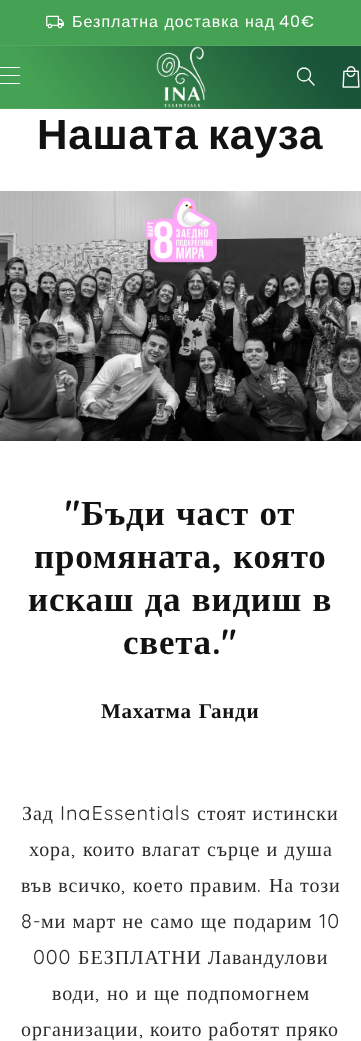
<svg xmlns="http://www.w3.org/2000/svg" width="361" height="1041">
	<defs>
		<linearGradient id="g1" gradientUnits="userSpaceOnUse" x1="48" y1="174" x2="313" y2="-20"><stop offset="0.14" stop-color="#45A153" /><stop offset="0.85" stop-color="#1A5539" /></linearGradient>
		<linearGradient id="g2" gradientUnits="userSpaceOnUse" x1="48" y1="236" x2="313" y2="42"><stop offset="0.14" stop-color="#54A961" /><stop offset="0.85" stop-color="#2C6349" /></linearGradient>
	</defs>
	<rect width="100%" height="100%" fill="#FFFFFF" />
	<rect x="0" y="0" width="361" height="45" fill="#45A153" />
	<rect x="0" y="45" width="361" height="1" fill="#54A961" />
	<image x="46" y="15" width="18" height="14" href="assets/img1.png" />
	<text x="72" y="27" font-family="Liberation Sans" font-size="16" letter-spacing="1" fill="#FFFFFF">Безплатна доставка над</text>
	<text x="279" y="27" font-family="Poppins" font-size="16" letter-spacing="1" fill="#FFFFFF">40€</text>
	<rect x="0" y="46" width="361" height="62" fill="url(#g1)" />
	<rect x="0" y="108" width="361" height="1" fill="url(#g2)" />
	<rect x="0" y="67" width="20" height="1" rx="0.5" fill="#FFFFFF" />
	<rect x="0" y="75" width="20" height="1" rx="0.5" fill="#FFFFFF" />
	<rect x="0" y="83" width="20" height="1" rx="0.5" fill="#FFFFFF" />
	<image x="156" y="46" width="50" height="62" href="assets/img2.png" />
	<circle cx="304" cy="74.5" r="6.5" fill="none" stroke="#FFFFFF" stroke-width="1.3" />
	<path d="M314 85L308.5 79" fill="none" stroke="#FFFFFF" stroke-width="1.3" stroke-linecap="round" stroke-linejoin="round" />
	<image x="342" y="66" width="18" height="22" href="assets/img3.png" />
	<text x="37" y="149" word-spacing="-3" font-family="Liberation Sans" font-size="42.25" font-weight="700" letter-spacing="0.75" fill="#121212">Нашата кауза</text>
	<image x="0" y="191" width="361" height="250" href="assets/img4.png" />
	<text x="65" y="525" font-family="Quicksand" font-size="35" font-weight="700" letter-spacing="0.75" fill="#121212">"</text>
	<g font-family="Liberation Serif" font-size="35" font-weight="700" letter-spacing="0.75" fill="#121212">
		<text x="81" y="525" word-spacing="1">Бъди част от</text>
		<text x="34" y="568">промяната</text>
	</g>
	<text x="212" y="568" font-family="Quicksand" font-size="35" font-weight="700" letter-spacing="0.75" fill="#121212">,</text>
	<g font-family="Liberation Serif" font-size="35" font-weight="700" letter-spacing="0.75" fill="#121212">
		<text x="233" y="568">която</text>
		<text x="28" y="611" word-spacing="1">искаш да видиш в</text>
		<text x="123" y="654">света</text>
	</g>
	<text x="212" y="654" font-family="Quicksand" font-size="35" font-weight="700" letter-spacing="0.75" fill="#121212">."</text>
	<text x="101" y="718" word-spacing="1" font-family="Liberation Serif" font-size="21" font-weight="700" letter-spacing="0.75" fill="#121212">Махатма Ганди</text>
	<text x="22" y="820" font-family="Liberation Serif" font-size="20" letter-spacing="0.9" fill="#2A2A2A">Зад</text>
	<text x="60" y="820" font-family="Quicksand" font-size="20" letter-spacing="0.9" fill="#2A2A2A">InaEssentials</text>
	<g font-family="Liberation Serif" font-size="20" letter-spacing="0.9" fill="#2A2A2A">
		<text x="197" y="820">стоят истински</text>
		<text x="29" y="856">хора</text>
	</g>
	<text x="71" y="856" font-family="Quicksand" font-size="20" letter-spacing="0.9" fill="#2A2A2A">,</text>
	<g font-family="Liberation Serif" font-size="20" letter-spacing="0.9" fill="#2A2A2A">
		<text x="83" y="856" word-spacing="0.5">които влагат сърце и душа</text>
		<text x="21" y="892">във всичко</text>
	</g>
	<text x="121" y="892" font-family="Quicksand" font-size="20" letter-spacing="0.9" fill="#2A2A2A">,</text>
	<text x="133" y="892" font-family="Liberation Serif" font-size="20" letter-spacing="0.9" fill="#2A2A2A">което правим</text>
	<text x="257" y="892" font-family="Quicksand" font-size="20" letter-spacing="0.9" fill="#2A2A2A">.</text>
	<text x="269" y="892" font-family="Liberation Serif" font-size="20" letter-spacing="0.9" fill="#2A2A2A">На този</text>
	<text x="21" y="928" font-family="Quicksand" font-size="20" letter-spacing="0.9" fill="#2A2A2A">8-</text>
	<text x="41" y="928" word-spacing="0.5" font-family="Liberation Serif" font-size="20" letter-spacing="0.9" fill="#2A2A2A">ми март не само ще подарим</text>
	<g font-family="Quicksand" font-size="20" letter-spacing="0.9" fill="#2A2A2A">
		<text x="319" y="928">10</text>
		<text x="33" y="964">000</text>
	</g>
	<g font-family="Liberation Serif" font-size="20" letter-spacing="0.9" fill="#2A2A2A">
		<text x="78" y="964">БЕЗПЛАТНИ Лавандулови</text>
		<text x="52" y="1000">води</text>
	</g>
	<text x="95" y="1000" font-family="Quicksand" font-size="20" letter-spacing="0.9" fill="#2A2A2A">,</text>
	<g font-family="Liberation Serif" font-size="20" letter-spacing="0.9" fill="#2A2A2A">
		<text x="107" y="1000" word-spacing="0.5">но и ще подпомогнем</text>
		<text x="21" y="1036">организации</text>
	</g>
	<text x="139" y="1036" font-family="Quicksand" font-size="20" letter-spacing="0.9" fill="#2A2A2A">,</text>
	<text x="150" y="1036" font-family="Liberation Serif" font-size="20" letter-spacing="0.9" fill="#2A2A2A">които работят пряко</text>
</svg>
